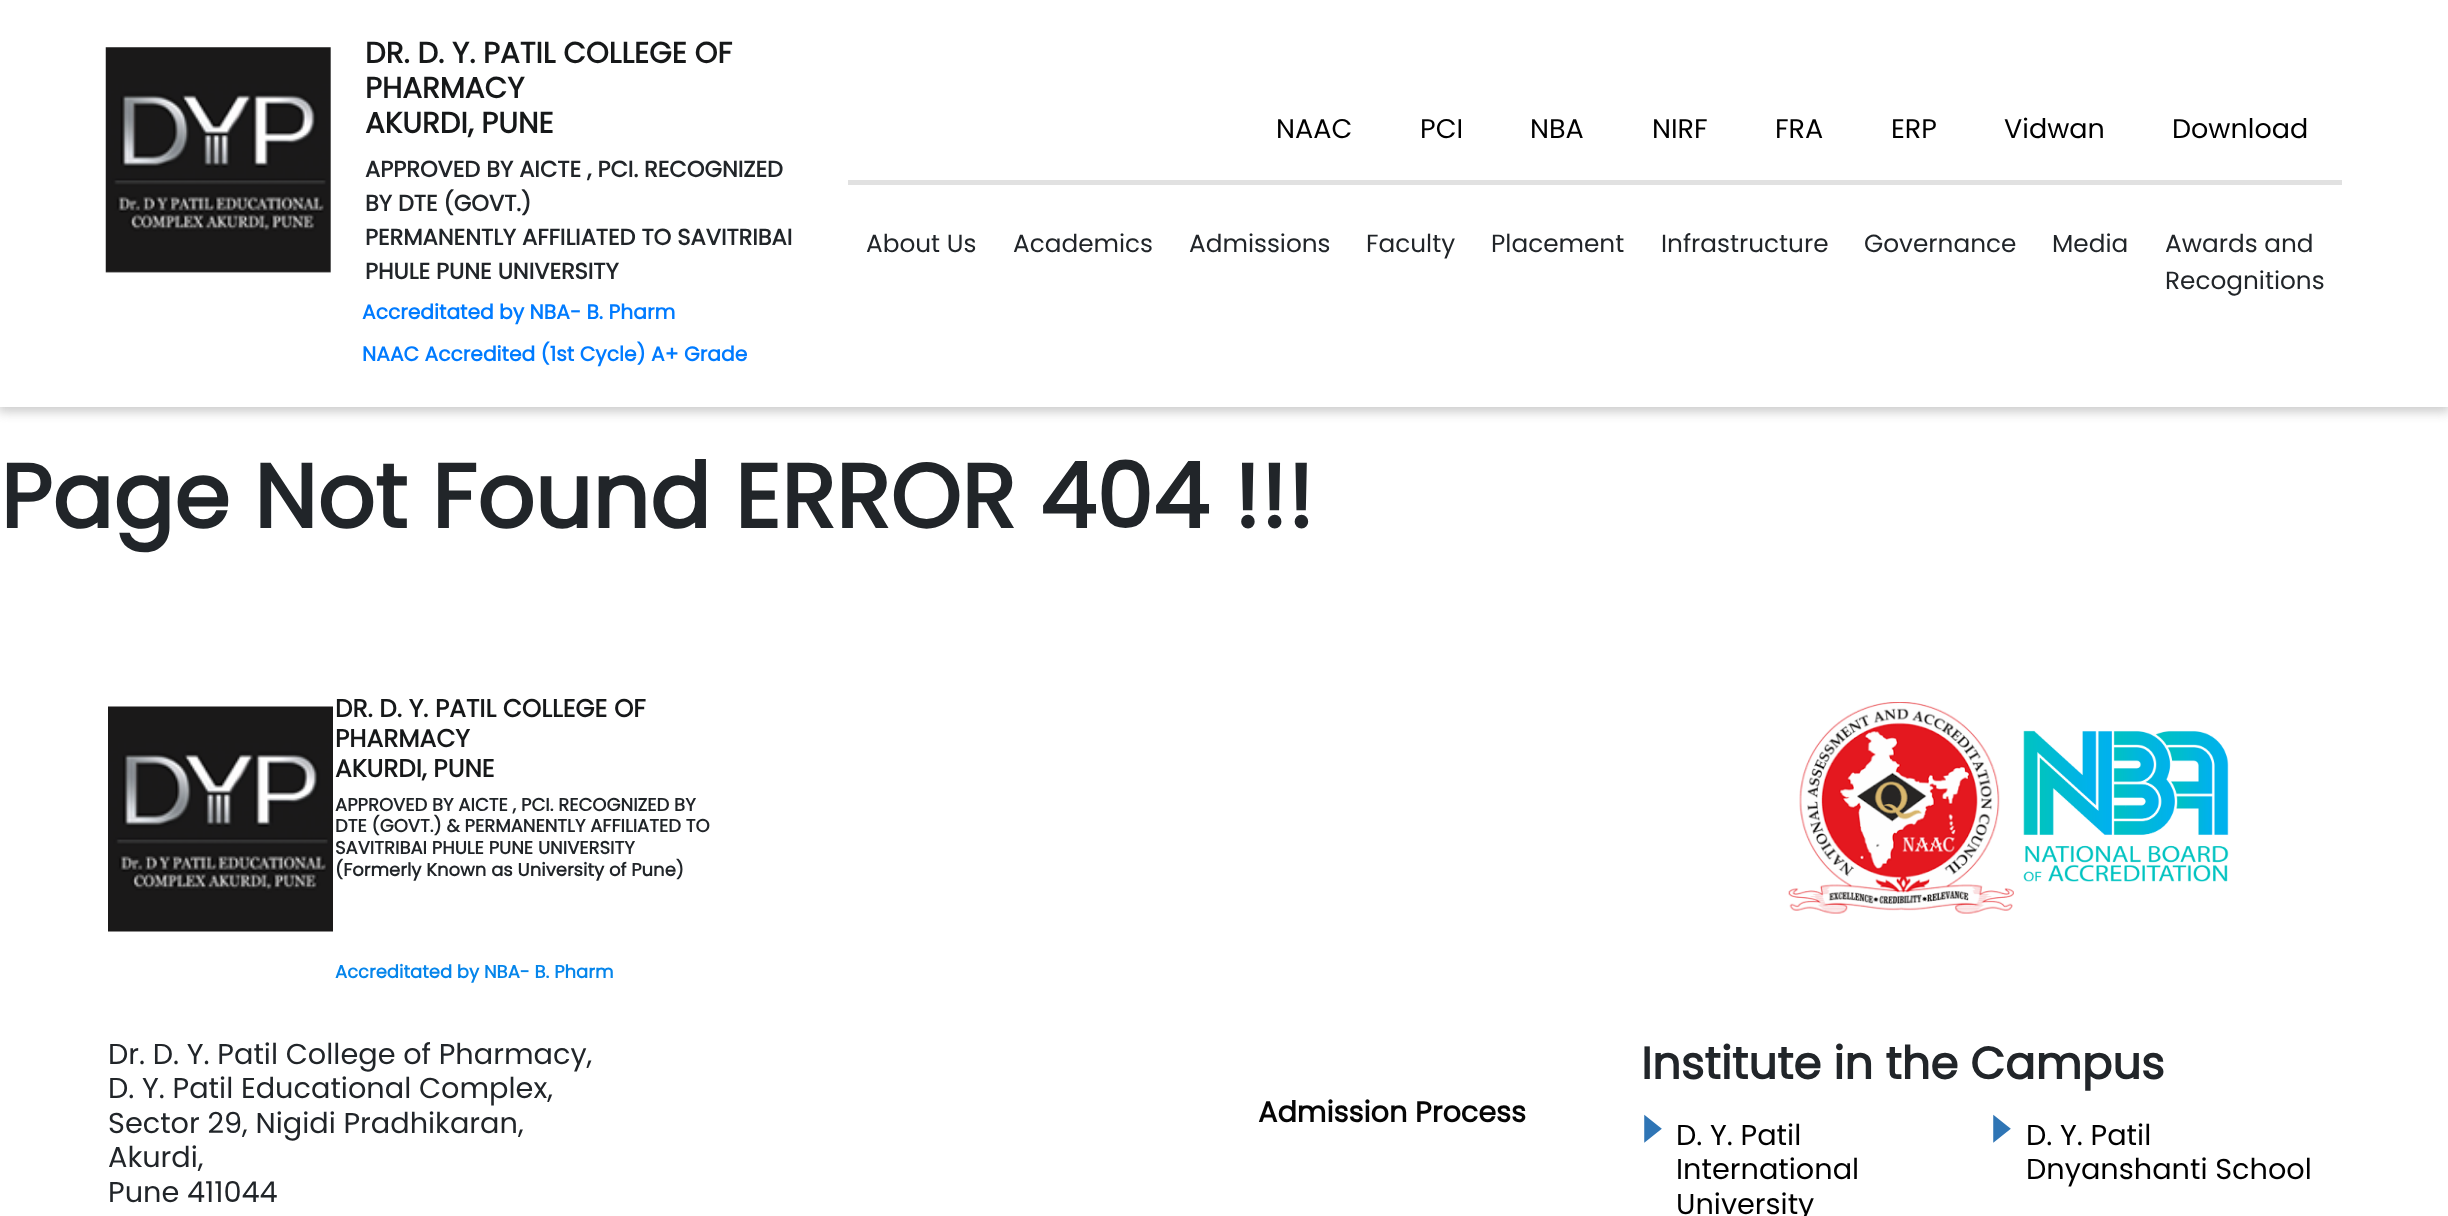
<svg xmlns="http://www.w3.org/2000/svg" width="2448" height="1216">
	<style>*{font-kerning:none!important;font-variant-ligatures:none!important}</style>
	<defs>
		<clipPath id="clip1"><rect x="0" y="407" width="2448" height="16" /></clipPath>
	</defs>
	<rect width="100%" height="100%" fill="#FFFFFF" />
	<g clip-path="url(#clip1)">
		<rect x="-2" y="0" width="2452" height="412" fill="#CCCCCC" filter="blur(5.5px)" />
	</g>
	<image x="105" y="47" width="226" height="226" href="assets/img1.png" />
	<g font-family="Poppins" font-size="29.25" font-weight="700" fill="#161819">
		<text x="365" y="63">DR. D. Y. PATIL COLLEGE OF</text>
		<text x="365" y="98">PHARMACY</text>
		<text x="365" y="133">AKURDI, PUNE</text>
	</g>
	<g font-family="Poppins" font-size="22.5" font-weight="700" fill="#212529">
		<text x="365" y="177">APPROVED BY AICTE , PCI. RECOGNIZED</text>
		<text x="365" y="211">BY DTE (GOVT.)</text>
		<text x="365" y="245">PERMANENTLY AFFILIATED TO SAVITRIBAI</text>
		<text x="365" y="279">PHULE PUNE UNIVERSITY</text>
	</g>
	<g font-family="Poppins" font-size="20.25" font-weight="700" fill="#007BFF">
		<text x="362" y="319">Accreditated by NBA- B. Pharm</text>
		<text x="362" y="361">NAAC Accredited (1st Cycle) A+ Grade</text>
	</g>
	<g font-family="Poppins" font-size="27" fill="#000000">
		<text x="1276" y="138">NAAC</text>
		<text x="1420" y="138">PCI</text>
		<text x="1530" y="138">NBA</text>
		<text x="1652" y="138">NIRF</text>
		<text x="1775" y="138">FRA</text>
		<text x="1891" y="138">ERP</text>
		<text x="2004" y="138">Vidwan</text>
		<text x="2172" y="138">Download</text>
	</g>
	<rect x="848" y="180" width="1494" height="5" fill="#E1E1E1" />
	<g font-family="Poppins" font-size="24.75" fill="#212529">
		<text x="866" y="252">About Us</text>
		<text x="1013" y="252">Academics</text>
		<text x="1189" y="252">Admissions</text>
		<text x="1366" y="252">Faculty</text>
		<text x="1491" y="252">Placement</text>
		<text x="1661" y="252">Infrastructure</text>
		<text x="1864" y="252">Governance</text>
		<text x="2052" y="252">Media</text>
		<text x="2165" y="252">Awards and</text>
		<text x="2165" y="289">Recognitions</text>
	</g>
	<text x="0" y="528" font-family="Poppins" font-size="90" font-weight="700" fill="#212529">Page Not Found ERROR 404 !!!</text>
	<image x="108" y="706" width="225" height="226" href="assets/img2.png" />
	<g font-family="Poppins" font-size="24.75" font-weight="700" fill="#161819">
		<text x="335" y="717">DR. D. Y. PATIL COLLEGE OF</text>
		<text x="335" y="747">PHARMACY</text>
		<text x="335" y="777">AKURDI, PUNE</text>
	</g>
	<g font-family="Poppins" font-size="18" font-weight="700" fill="#212529">
		<text x="335" y="811">APPROVED BY AICTE , PCI. RECOGNIZED BY</text>
		<text x="335" y="832">DTE (GOVT.) &amp; PERMANENTLY AFFILIATED TO</text>
		<text x="335" y="854">SAVITRIBAI PHULE PUNE UNIVERSITY</text>
		<text x="335" y="876">(Formerly Known as University of Pune)</text>
	</g>
	<text x="335" y="978" font-family="Poppins" font-size="18" font-weight="700" fill="#0585EB">Accreditated by NBA- B. Pharm</text>
	<image x="1788" y="702" width="226" height="212" href="assets/img3.png" />
	<image x="2023" y="730" width="206" height="152" href="assets/img4.png" />
	<g font-family="Poppins" font-size="28.75" fill="#212529">
		<text x="108" y="1064">Dr. D. Y. Patil College of Pharmacy,</text>
		<text x="108" y="1098">D. Y. Patil Educational Complex,</text>
		<text x="108" y="1133">Sector 29, Nigidi Pradhikaran,</text>
		<text x="108" y="1167">Akurdi,</text>
		<text x="108" y="1202">Pune 411044</text>
	</g>
	<text x="1258" y="1122" font-family="Poppins" font-size="28.75" font-weight="700" fill="#060606">Admission Process</text>
	<text x="1641" y="1079" font-family="Poppins" font-size="45" font-weight="700" fill="#212529">Institute in the Campus</text>
	<text x="1641" y="1149" font-family="'Noto Sans Symbols 2'" font-size="63" fill="#2F75B5">🢒</text>
	<g font-family="Poppins" font-size="28.75" fill="#000000">
		<text x="1676" y="1145">D. Y. Patil</text>
		<text x="1676" y="1179">International</text>
		<text x="1676" y="1214">University</text>
	</g>
	<text x="1990" y="1149" font-family="'Noto Sans Symbols 2'" font-size="63" fill="#2F75B5">🢒</text>
	<g font-family="Poppins" font-size="28.75" fill="#000000">
		<text x="2026" y="1145">D. Y. Patil</text>
		<text x="2026" y="1179">Dnyanshanti School</text>
	</g>
</svg>
